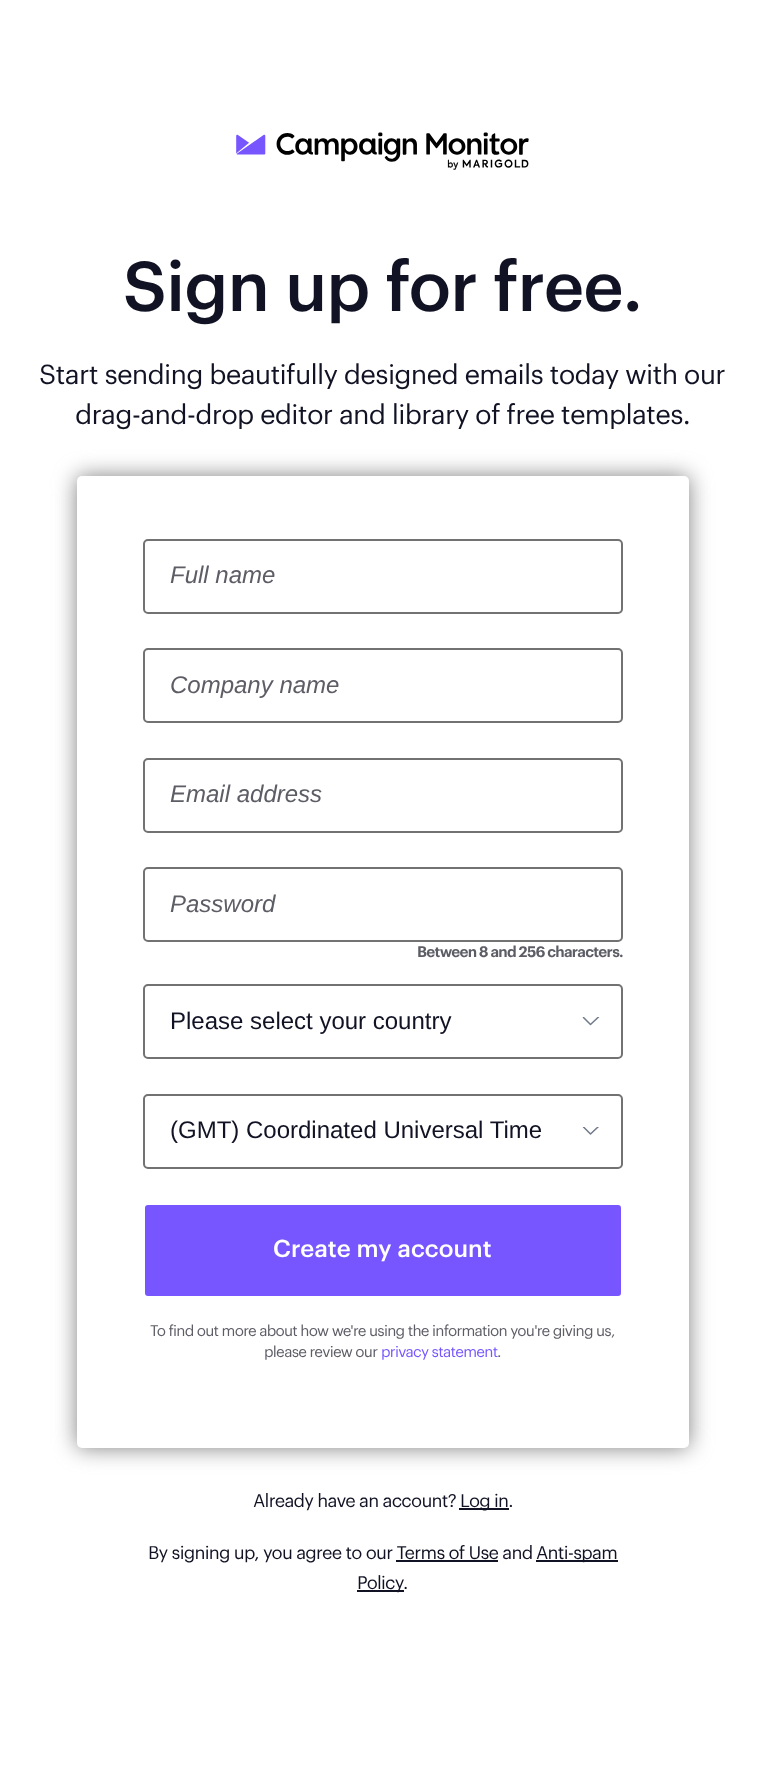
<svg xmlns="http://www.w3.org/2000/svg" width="764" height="1790">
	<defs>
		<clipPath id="clip1"><rect x="582" y="1017" width="18" height="9" /></clipPath>
		<clipPath id="clip2"><rect x="582" y="1127" width="18" height="9" /></clipPath>
	</defs>
	<rect width="100%" height="100%" fill="#FFFFFF" />
	<image x="236" y="132" width="293" height="38" href="assets/img1.png" />
	<text x="123" y="311" font-family="Graphik" font-size="69" font-weight="500" letter-spacing="-0.75" fill="#111324">Sign up for free.</text>
	<g font-family="Graphik" font-size="27" letter-spacing="-0.75" fill="#111324">
		<text x="39" y="384">Start sending beautifully designed emails today with our</text>
		<text x="75" y="424">drag-and-drop editor and library of free templates.</text>
	</g>
	<rect x="77" y="476" width="612" height="972" rx="5" fill="#808080" filter="blur(11px)" />
	<rect x="77" y="476" width="612" height="972" rx="5" fill="#FFFFFF" />
	<rect x="144" y="540" width="478" height="73" rx="4" fill="none" stroke="#727272" stroke-width="2" />
	<text x="170" y="583" font-family="Liberation Sans" font-size="24" font-style="italic" fill="#5D5D66">Full name</text>
	<rect x="144" y="649" width="478" height="73" rx="4" fill="none" stroke="#727272" stroke-width="2" />
	<text x="170" y="693" font-family="Liberation Sans" font-size="24" font-style="italic" fill="#5D5D66">Company name</text>
	<rect x="144" y="759" width="478" height="73" rx="4" fill="none" stroke="#727272" stroke-width="2" />
	<text x="170" y="802" font-family="Liberation Sans" font-size="24" font-style="italic" fill="#5D5D66">Email address</text>
	<rect x="144" y="868" width="478" height="73" rx="4" fill="none" stroke="#727272" stroke-width="2" />
	<text x="170" y="912" font-family="Liberation Sans" font-size="24" font-style="italic" fill="#5D5D66">Password</text>
	<text x="417" y="957" font-family="Graphik" font-size="15" font-weight="600" letter-spacing="-0.75" fill="#5D5D66">Between 8 and 256 characters.</text>
	<rect x="144" y="985" width="478" height="73" rx="4" fill="none" stroke="#727272" stroke-width="2" />
	<text x="170" y="1029" font-family="Liberation Sans" font-size="24" fill="#111324">Please select your country</text>
	<g clip-path="url(#clip1)">
		<path d="M583.5 1017.5L590.5 1024.5L598.5 1017" fill="none" stroke="#717A8A" stroke-width="1.5" stroke-linecap="round" stroke-linejoin="round" />
	</g>
	<rect x="144" y="1095" width="478" height="73" rx="4" fill="none" stroke="#727272" stroke-width="2" />
	<text x="170" y="1138" font-family="Liberation Sans" font-size="24" fill="#111324">(GMT) Coordinated Universal Time</text>
	<g clip-path="url(#clip2)">
		<path d="M583.5 1127L590.5 1134L598.5 1126.5" fill="none" stroke="#717A8A" stroke-width="1.5" stroke-linecap="round" stroke-linejoin="round" />
	</g>
	<rect x="144" y="1204" width="478" height="93" rx="4" fill="#7856FF" stroke="#FFFFFF" stroke-width="2" />
	<text x="273" y="1257" font-family="Graphik" font-size="24" font-weight="500" fill="#FFFFFF">Create my account</text>
	<g font-family="Graphik" font-size="15" letter-spacing="-0.75" fill="#5D5D66">
		<text x="150" y="1336">To find out more about how we're using the information you're giving us,</text>
		<text x="264" y="1357">please review our</text>
	</g>
	<text x="381" y="1357" font-family="Graphik" font-size="15" letter-spacing="-0.75" fill="#7856FF">privacy statement</text>
	<text x="497" y="1357" font-family="Graphik" font-size="15" letter-spacing="-0.75" fill="#5D5D66">.</text>
	<text x="253" y="1507" font-family="Graphik" font-size="18" letter-spacing="-0.75" fill="#111324">Already have an account?</text>
	<rect x="459" y="1508" width="50" height="2" fill="#111324" />
	<g font-family="Graphik" font-size="18" letter-spacing="-0.75" fill="#111324">
		<text x="460" y="1507">Log in.</text>
		<text x="148" y="1559">By signing up, you agree to our Terms of Use and</text>
	</g>
	<rect x="536" y="1560" width="82" height="2" fill="#111324" />
	<text x="536" y="1559" font-family="Graphik" font-size="18" letter-spacing="-0.75" fill="#111324">Anti-spam</text>
	<rect x="396" y="1560" width="102" height="2" fill="#111324" />
	<rect x="357" y="1590" width="47" height="2" fill="#111324" />
	<g font-family="Graphik" font-size="18" letter-spacing="-0.75" fill="#111324">
		<text x="357" y="1589">Policy</text>
		<text x="403" y="1589">.</text>
	</g>
</svg>
